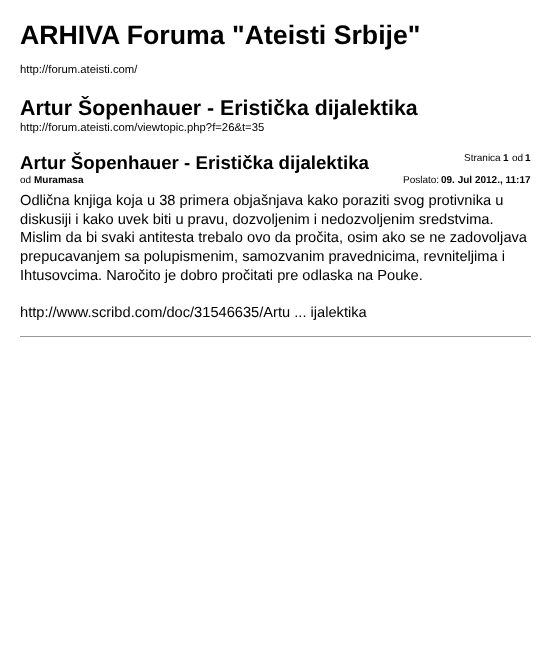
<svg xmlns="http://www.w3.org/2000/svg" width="551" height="665">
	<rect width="100%" height="100%" fill="#FFFFFF" />
	<text x="20" y="44" font-family="Liberation Sans" font-size="26.7" font-weight="700" fill="#000000">ARHIVA Foruma "Ateisti Srbije"</text>
	<text x="20" y="73" font-family="Liberation Sans" font-size="11.3" fill="#000000">http://forum.ateisti.com/</text>
	<text x="20" y="115" font-family="Liberation Sans" font-size="21.3" font-weight="700" fill="#000000">Artur Šopenhauer - Eristička dijalektika</text>
	<text x="20" y="131" font-family="Liberation Sans" font-size="11.3" fill="#000000">http://forum.ateisti.com/viewtopic.php?f=26&amp;t=35</text>
	<text x="20" y="169" font-family="Liberation Sans" font-size="18.7" font-weight="700" fill="#000000">Artur Šopenhauer - Eristička dijalektika</text>
	<text x="20" y="183" font-family="Liberation Sans" font-size="10" fill="#000000">od</text>
	<text x="34" y="183" font-family="Liberation Sans" font-size="10" font-weight="700" fill="#000000">Muramasa</text>
	<text x="403" y="183" font-family="Liberation Sans" font-size="10" fill="#000000">Poslato:</text>
	<text x="441" y="183" font-family="Liberation Sans" font-size="10" font-weight="700" fill="#000000">09. Jul 2012., 11:17</text>
	<g font-family="Liberation Sans" font-size="14.65" fill="#000000">
		<text x="20" y="205">Odlična knjiga koja u 38 primera objašnjava kako poraziti svog protivnika u</text>
		<text x="20" y="224">diskusiji i kako uvek biti u pravu, dozvoljenim i nedozvoljenim sredstvima.</text>
		<text x="20" y="242">Mislim da bi svaki antitesta trebalo ovo da pročita, osim ako se ne zadovoljava</text>
		<text x="20" y="261">prepucavanjem sa polupismenim, samozvanim pravednicima, revniteljima i</text>
		<text x="20" y="280">Ihtusovcima. Naročito je dobro pročitati pre odlaska na Pouke.</text>
		<text x="20" y="317">http://www.scribd.com/doc/31546635/Artu ... ijalektika</text>
	</g>
	<text x="464" y="161" font-family="Liberation Sans" font-size="10" fill="#000000">Stranica</text>
	<text x="503" y="161" font-family="Liberation Sans" font-size="10" font-weight="700" fill="#000000">1</text>
	<text x="512" y="161" font-family="Liberation Sans" font-size="10" fill="#000000">od</text>
	<text x="525" y="161" font-family="Liberation Sans" font-size="10" font-weight="700" fill="#000000">1</text>
	<rect x="20" y="336" width="511" height="1" fill="#999999" />
</svg>
